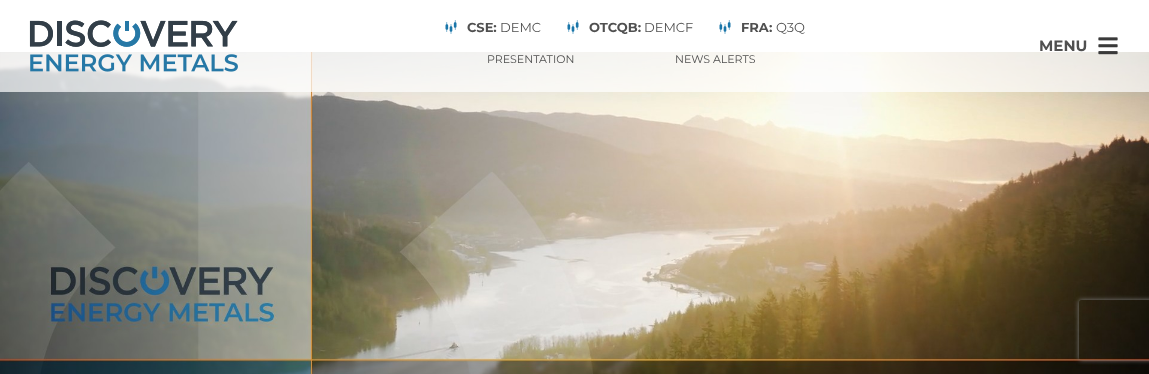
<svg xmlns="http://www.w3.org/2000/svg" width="1149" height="374">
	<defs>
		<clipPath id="clip1"><path d="M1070 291H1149V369H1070ZM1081 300H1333C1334 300 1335 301 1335 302V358C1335 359 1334 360 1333 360H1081C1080 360 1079 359 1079 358V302C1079 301 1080 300 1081 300Z" clip-rule="evenodd" /></clipPath>
	</defs>
	<rect width="100%" height="100%" fill="#FFFFFF" />
	<image x="0" y="52" width="1149" height="322" href="assets/img4.png" />
	<rect x="0" y="52" width="1149" height="40" fill="#FFFFFF" fill-opacity="0.7" />
	<image x="29" y="20" width="209" height="52" href="assets/img1.png" />
	<image x="445" y="20" width="12" height="14" href="assets/img2.png" />
	<text x="467" y="32" font-family="Montserrat" font-size="13" font-weight="700" fill="#505050">CSE:</text>
	<text x="500" y="32" font-family="Montserrat" font-size="13" fill="#505050">DEMC</text>
	<image x="567" y="20" width="12" height="14" href="assets/img2.png" />
	<text x="589" y="32" font-family="Montserrat" font-size="13" font-weight="700" fill="#505050">OTCQB:</text>
	<text x="644" y="32" font-family="Montserrat" font-size="13" fill="#505050">DEMCF</text>
	<image x="719" y="20" width="12" height="14" href="assets/img2.png" />
	<text x="741" y="32" font-family="Montserrat" font-size="13" font-weight="700" fill="#505050">FRA:</text>
	<text x="776" y="32" font-family="Montserrat" font-size="13" fill="#505050">Q3Q</text>
	<g font-family="Montserrat" font-size="11" fill="#505050">
		<text x="487" y="63">PRESENTATION</text>
		<text x="675" y="63">NEWS ALERTS</text>
	</g>
	<text x="1039" y="51" font-family="Montserrat" font-size="15" font-weight="700" fill="#505050">MENU</text>
	<image x="1098" y="37" width="20" height="18" href="assets/img3.png" />
	<g clip-path="url(#clip1)">
		<rect x="1079" y="300" width="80" height="60" rx="2" fill="#808080" filter="blur(2.5px)" />
	</g>
</svg>
